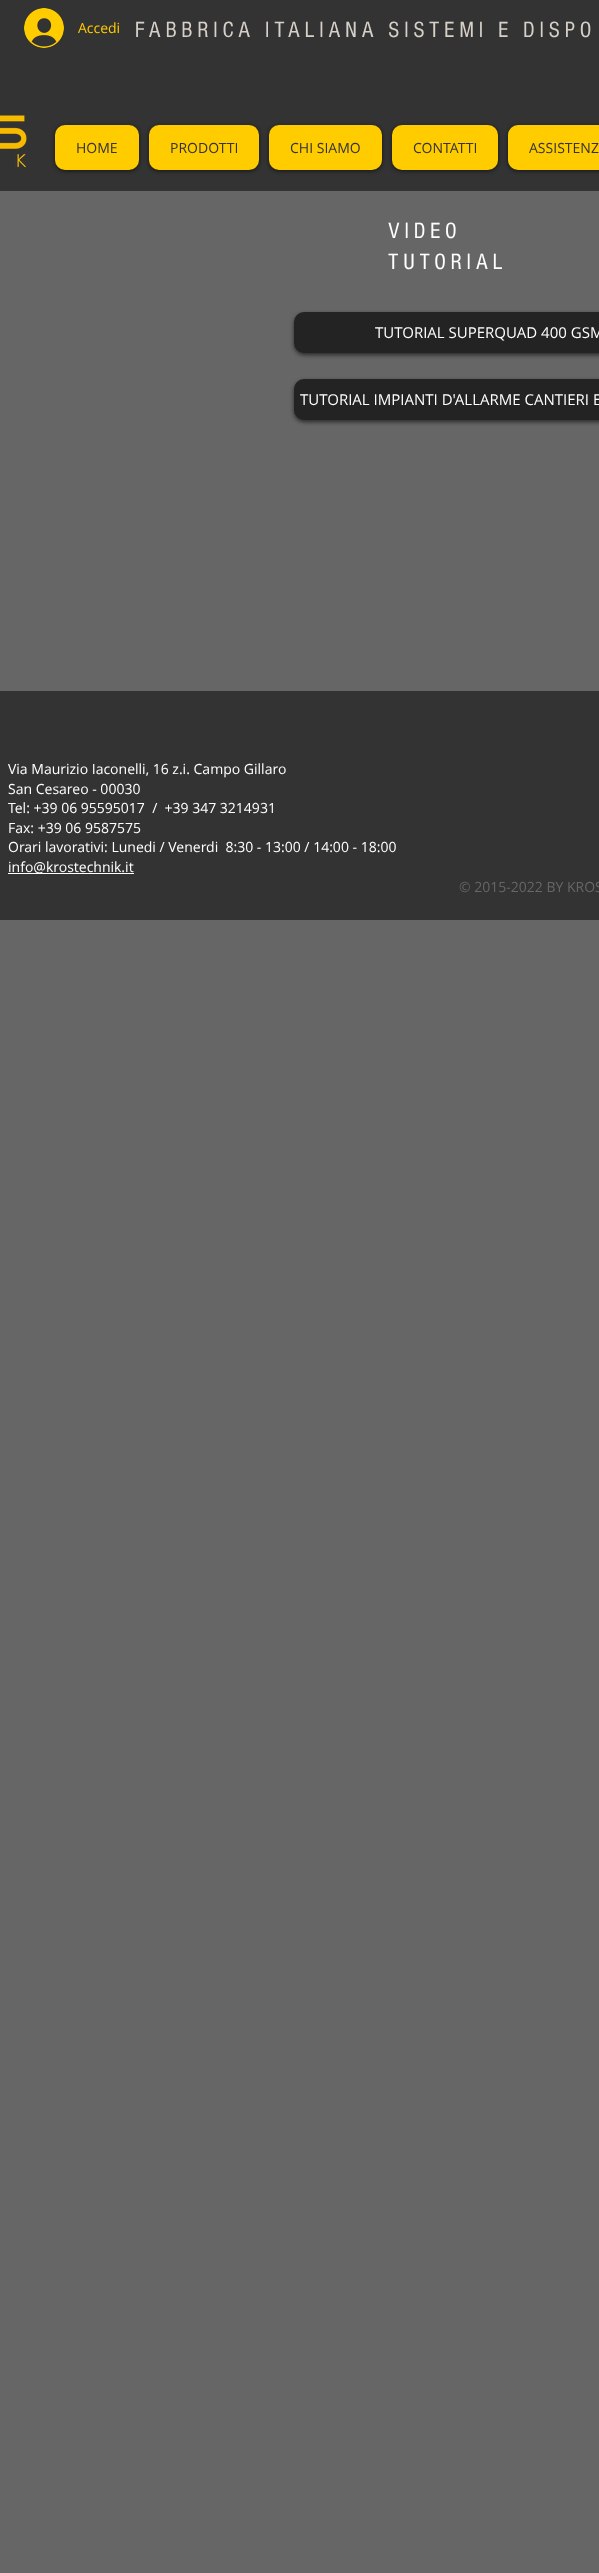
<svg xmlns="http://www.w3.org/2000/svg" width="599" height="2573">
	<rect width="100%" height="100%" fill="#666666" />
	<rect x="0" y="0" width="599" height="191" fill="#333333" />
	<image x="24" y="8" width="40" height="40" href="assets/img1.png" />
	<text x="78" y="33" font-family="Open Sans" font-size="14" fill="#FFCC00">Accedi</text>
	<text x="135" y="37" font-family="'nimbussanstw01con'" font-size="23" letter-spacing="4.6" fill="#D7D0C9">FABBRICA ITALIANA SISTEMI E DISPO</text>
	<image x="0" y="115" width="27" height="53" href="assets/img2.png" />
	<rect x="55" y="126" width="84" height="45" rx="10" fill="#000000" fill-opacity="0.6" filter="blur(2px)" />
	<rect x="55" y="125" width="84" height="45" rx="10" fill="#FFCC00" />
	<text x="76" y="153" font-family="Open Sans" font-size="14" fill="#333333">HOME</text>
	<rect x="149" y="126" width="110" height="45" rx="10" fill="#000000" fill-opacity="0.6" filter="blur(2px)" />
	<rect x="149" y="125" width="110" height="45" rx="10" fill="#FFCC00" />
	<text x="170" y="153" font-family="Open Sans" font-size="14" fill="#333333">PRODOTTI</text>
	<rect x="269" y="126" width="113" height="45" rx="10" fill="#000000" fill-opacity="0.6" filter="blur(2px)" />
	<rect x="269" y="125" width="113" height="45" rx="10" fill="#FFCC00" />
	<text x="290" y="153" font-family="Open Sans" font-size="14" fill="#333333">CHI SIAMO</text>
	<rect x="392" y="126" width="106" height="45" rx="10" fill="#000000" fill-opacity="0.6" filter="blur(2px)" />
	<rect x="392" y="125" width="106" height="45" rx="10" fill="#FFCC00" />
	<text x="413" y="153" font-family="Open Sans" font-size="14" fill="#333333">CONTATTI</text>
	<rect x="508" y="126" width="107" height="45" rx="10" fill="#000000" fill-opacity="0.6" filter="blur(2px)" />
	<rect x="508" y="125" width="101" height="45" rx="10" fill="#FFCC00" />
	<text x="529" y="153" font-family="Open Sans" font-size="14" fill="#333333">ASSISTENZ</text>
	<g font-family="'nimbussanstw01con'" font-size="23" letter-spacing="4.6" fill="#FFFFFF">
		<text x="388" y="238">VIDEO</text>
		<text x="388" y="269">TUTORIAL</text>
	</g>
	<rect x="294" y="314" width="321" height="41" rx="10" fill="#000000" fill-opacity="0.6" filter="blur(2px)" />
	<rect x="294" y="312" width="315" height="41" rx="10" fill="#242323" />
	<text x="375" y="338" font-family="Open Sans" font-size="15" fill="#FFFFFF">TUTORIAL SUPERQUAD 400 GSM</text>
	<rect x="294" y="381" width="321" height="41" rx="10" fill="#000000" fill-opacity="0.6" filter="blur(2px)" />
	<rect x="294" y="379" width="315" height="41" rx="10" fill="#242323" />
	<text x="300" y="405" font-family="Open Sans" font-size="15" fill="#FFFFFF">TUTORIAL IMPIANTI D'ALLARME CANTIERI E</text>
	<rect x="0" y="691" width="599" height="229" fill="#333333" />
	<g font-family="Open Sans" font-size="14" fill="#FFFFFF">
		<text x="8" y="774">Via Maurizio Iaconelli, 16 z.i. Campo Gillaro</text>
		<text x="8" y="794">San Cesareo - 00030</text>
		<text x="8" y="813" xml:space="preserve">Tel: +39 06 95595017  /  +39 347 3214931</text>
		<text x="8" y="833">Fax: +39 06 9587575</text>
		<text x="8" y="852" xml:space="preserve">Orari lavorativi: Lunedi / Venerdi  8:30 - 13:00 / 14:00 - 18:00</text>
	</g>
	<rect x="8" y="873" width="126" height="1" fill="#FFFFFF" />
	<text x="8" y="872" font-family="Open Sans" font-size="14" fill="#FFFFFF">info@krostechnik.it</text>
	<text x="459" y="892" font-family="Open Sans" font-size="14" fill="#666666">© 2015-2022 BY KROS</text>
</svg>
